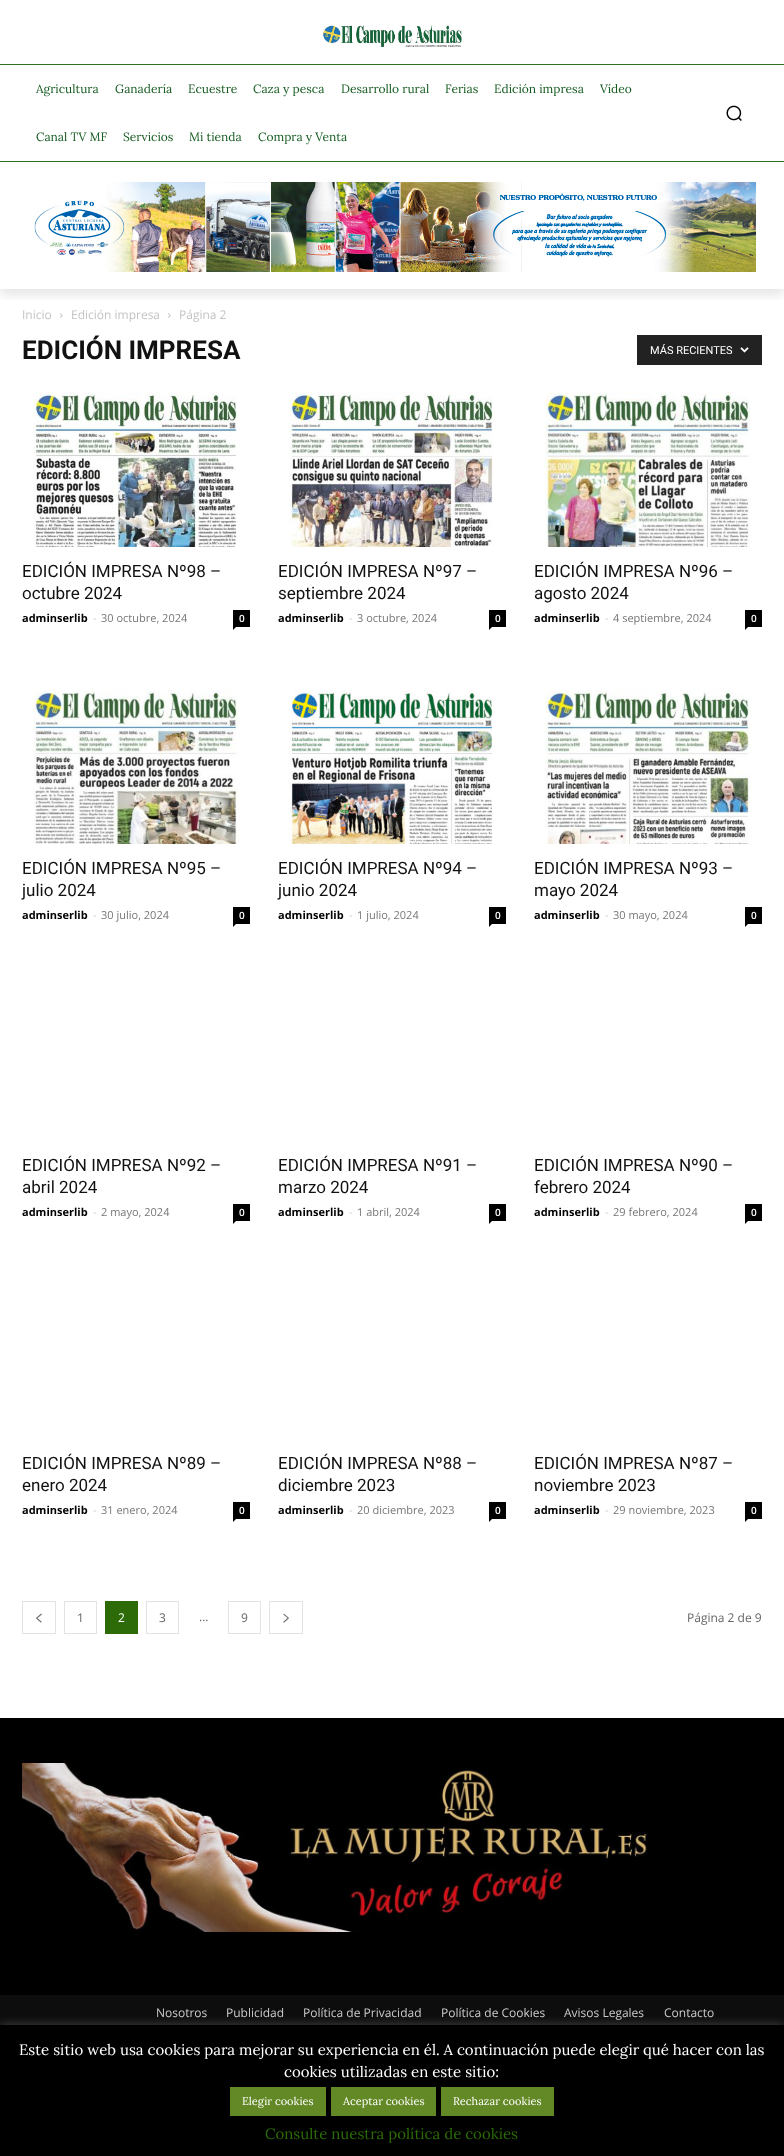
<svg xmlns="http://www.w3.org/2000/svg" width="784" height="2156">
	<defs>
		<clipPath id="clip1"><rect x="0" y="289" width="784" height="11" /></clipPath>
	</defs>
	<rect width="100%" height="100%" fill="#FFFFFF" />
	<image x="323" y="25" width="139" height="22" href="assets/img1.png" />
	<rect x="0" y="64" width="784" height="1" fill="#2C7020" />
	<rect x="0" y="161" width="784" height="1" fill="#2C7020" />
	<image x="34" y="182" width="722" height="90" href="assets/img3.png" />
	<image x="60" y="313" width="3" height="5" href="assets/img4.png" />
	<image x="168" y="313" width="3" height="5" href="assets/img4.png" />
	<g clip-path="url(#clip1)">
		<rect x="0" y="6" width="784" height="289" fill="#000000" fill-opacity="0.1" filter="blur(6px)" />
	</g>
	<g font-family="Lora" font-size="12" fill="#165B20">
		<text x="36" y="93">Agricultura</text>
		<text x="115" y="93">Ganadería</text>
		<text x="188" y="93">Ecuestre</text>
		<text x="253" y="93">Caza y pesca</text>
		<text x="341" y="93">Desarrollo rural</text>
		<text x="445" y="93">Ferias</text>
		<text x="494" y="93">Edición impresa</text>
		<text x="600" y="93">Vídeo</text>
		<text x="36" y="141">Canal TV MF</text>
		<text x="123" y="141">Servicios</text>
		<text x="189" y="141">Mi tienda</text>
		<text x="258" y="141">Compra y Venta</text>
	</g>
	<image x="726" y="105" width="16" height="16" href="assets/img2.png" />
	<g font-family="Open Sans" font-size="12" fill="#C3C3C3">
		<text x="22" y="319">Inicio</text>
		<text x="71" y="319">Edición impresa</text>
		<text x="179" y="319">Página 2</text>
	</g>
	<text x="22" y="359" font-family="Roboto" font-size="26" font-weight="700" fill="#111111">EDICIÓN IMPRESA</text>
	<rect x="637" y="335" width="125" height="30" fill="#222222" />
	<text x="650" y="354" font-family="Roboto" font-size="11" fill="#FFFFFF">MÁS RECIENTES</text>
	<image x="740" y="347" width="9" height="6" href="assets/img5.png" />
	<image x="33" y="392" width="204" height="155" href="assets/img6.png" />
	<g font-family="Roboto" font-size="17" fill="#111111">
		<text x="22" y="577">EDICIÓN IMPRESA Nº98 –</text>
		<text x="22" y="599">octubre 2024</text>
	</g>
	<text x="22" y="622" font-family="Open Sans" font-size="11" font-weight="700" fill="#000000">adminserlib</text>
	<text x="93" y="622" font-family="Open Sans" font-size="11" fill="#CCCCCC">-</text>
	<text x="101" y="622" font-family="Open Sans" font-size="11" fill="#767676">30 octubre, 2024</text>
	<rect x="233" y="610" width="17" height="17" fill="#000000" />
	<text x="239" y="622" font-family="Open Sans" font-size="10" font-weight="600" fill="#FFFFFF">0</text>
	<path d="M233 627H236L233 630Z" fill="#000000" />
	<image x="289" y="392" width="204" height="155" href="assets/img7.png" />
	<g font-family="Roboto" font-size="17" fill="#111111">
		<text x="278" y="577">EDICIÓN IMPRESA Nº97 –</text>
		<text x="278" y="599">septiembre 2024</text>
	</g>
	<text x="278" y="622" font-family="Open Sans" font-size="11" font-weight="700" fill="#000000">adminserlib</text>
	<text x="349" y="622" font-family="Open Sans" font-size="11" fill="#CCCCCC">-</text>
	<text x="357" y="622" font-family="Open Sans" font-size="11" fill="#767676">3 octubre, 2024</text>
	<rect x="489" y="610" width="17" height="17" fill="#000000" />
	<text x="495" y="622" font-family="Open Sans" font-size="10" font-weight="600" fill="#FFFFFF">0</text>
	<path d="M489 627H492L489 630Z" fill="#000000" />
	<image x="545" y="392" width="206" height="155" href="assets/img8.png" />
	<g font-family="Roboto" font-size="17" fill="#111111">
		<text x="534" y="577">EDICIÓN IMPRESA Nº96 –</text>
		<text x="534" y="599">agosto 2024</text>
	</g>
	<text x="534" y="622" font-family="Open Sans" font-size="11" font-weight="700" fill="#000000">adminserlib</text>
	<text x="605" y="622" font-family="Open Sans" font-size="11" fill="#CCCCCC">-</text>
	<text x="613" y="622" font-family="Open Sans" font-size="11" fill="#767676">4 septiembre, 2024</text>
	<rect x="745" y="610" width="17" height="17" fill="#000000" />
	<text x="751" y="622" font-family="Open Sans" font-size="10" font-weight="600" fill="#FFFFFF">0</text>
	<path d="M745 627H748L745 630Z" fill="#000000" />
	<image x="33" y="690" width="206" height="154" href="assets/img9.png" />
	<g font-family="Roboto" font-size="17" fill="#111111">
		<text x="22" y="874">EDICIÓN IMPRESA Nº95 –</text>
		<text x="22" y="896">julio 2024</text>
	</g>
	<text x="22" y="919" font-family="Open Sans" font-size="11" font-weight="700" fill="#000000">adminserlib</text>
	<text x="93" y="919" font-family="Open Sans" font-size="11" fill="#CCCCCC">-</text>
	<text x="101" y="919" font-family="Open Sans" font-size="11" fill="#767676">30 julio, 2024</text>
	<rect x="233" y="907" width="17" height="17" fill="#000000" />
	<text x="239" y="919" font-family="Open Sans" font-size="10" font-weight="600" fill="#FFFFFF">0</text>
	<path d="M233 924H236L233 927Z" fill="#000000" />
	<image x="289" y="690" width="204" height="154" href="assets/img10.png" />
	<g font-family="Roboto" font-size="17" fill="#111111">
		<text x="278" y="874">EDICIÓN IMPRESA Nº94 –</text>
		<text x="278" y="896">junio 2024</text>
	</g>
	<text x="278" y="919" font-family="Open Sans" font-size="11" font-weight="700" fill="#000000">adminserlib</text>
	<text x="349" y="919" font-family="Open Sans" font-size="11" fill="#CCCCCC">-</text>
	<text x="357" y="919" font-family="Open Sans" font-size="11" fill="#767676">1 julio, 2024</text>
	<rect x="489" y="907" width="17" height="17" fill="#000000" />
	<text x="495" y="919" font-family="Open Sans" font-size="10" font-weight="600" fill="#FFFFFF">0</text>
	<path d="M489 924H492L489 927Z" fill="#000000" />
	<image x="545" y="690" width="207" height="154" href="assets/img11.png" />
	<g font-family="Roboto" font-size="17" fill="#111111">
		<text x="534" y="874">EDICIÓN IMPRESA Nº93 –</text>
		<text x="534" y="896">mayo 2024</text>
	</g>
	<text x="534" y="919" font-family="Open Sans" font-size="11" font-weight="700" fill="#000000">adminserlib</text>
	<text x="605" y="919" font-family="Open Sans" font-size="11" fill="#CCCCCC">-</text>
	<text x="613" y="919" font-family="Open Sans" font-size="11" fill="#767676">30 mayo, 2024</text>
	<rect x="745" y="907" width="17" height="17" fill="#000000" />
	<text x="751" y="919" font-family="Open Sans" font-size="10" font-weight="600" fill="#FFFFFF">0</text>
	<path d="M745 924H748L745 927Z" fill="#000000" />
	<g font-family="Roboto" font-size="17" fill="#111111">
		<text x="22" y="1171">EDICIÓN IMPRESA Nº92 –</text>
		<text x="22" y="1193">abril 2024</text>
	</g>
	<text x="22" y="1216" font-family="Open Sans" font-size="11" font-weight="700" fill="#000000">adminserlib</text>
	<text x="93" y="1216" font-family="Open Sans" font-size="11" fill="#CCCCCC">-</text>
	<text x="101" y="1216" font-family="Open Sans" font-size="11" fill="#767676">2 mayo, 2024</text>
	<rect x="233" y="1204" width="17" height="17" fill="#000000" />
	<text x="239" y="1216" font-family="Open Sans" font-size="10" font-weight="600" fill="#FFFFFF">0</text>
	<path d="M233 1221H236L233 1224Z" fill="#000000" />
	<g font-family="Roboto" font-size="17" fill="#111111">
		<text x="278" y="1171">EDICIÓN IMPRESA Nº91 –</text>
		<text x="278" y="1193">marzo 2024</text>
	</g>
	<text x="278" y="1216" font-family="Open Sans" font-size="11" font-weight="700" fill="#000000">adminserlib</text>
	<text x="349" y="1216" font-family="Open Sans" font-size="11" fill="#CCCCCC">-</text>
	<text x="357" y="1216" font-family="Open Sans" font-size="11" fill="#767676">1 abril, 2024</text>
	<rect x="489" y="1204" width="17" height="17" fill="#000000" />
	<text x="495" y="1216" font-family="Open Sans" font-size="10" font-weight="600" fill="#FFFFFF">0</text>
	<path d="M489 1221H492L489 1224Z" fill="#000000" />
	<g font-family="Roboto" font-size="17" fill="#111111">
		<text x="534" y="1171">EDICIÓN IMPRESA Nº90 –</text>
		<text x="534" y="1193">febrero 2024</text>
	</g>
	<text x="534" y="1216" font-family="Open Sans" font-size="11" font-weight="700" fill="#000000">adminserlib</text>
	<text x="605" y="1216" font-family="Open Sans" font-size="11" fill="#CCCCCC">-</text>
	<text x="613" y="1216" font-family="Open Sans" font-size="11" fill="#767676">29 febrero, 2024</text>
	<rect x="745" y="1204" width="17" height="17" fill="#000000" />
	<text x="751" y="1216" font-family="Open Sans" font-size="10" font-weight="600" fill="#FFFFFF">0</text>
	<path d="M745 1221H748L745 1224Z" fill="#000000" />
	<g font-family="Roboto" font-size="17" fill="#111111">
		<text x="22" y="1469">EDICIÓN IMPRESA Nº89 –</text>
		<text x="22" y="1491">enero 2024</text>
	</g>
	<text x="22" y="1514" font-family="Open Sans" font-size="11" font-weight="700" fill="#000000">adminserlib</text>
	<text x="93" y="1514" font-family="Open Sans" font-size="11" fill="#CCCCCC">-</text>
	<text x="101" y="1514" font-family="Open Sans" font-size="11" fill="#767676">31 enero, 2024</text>
	<rect x="233" y="1502" width="17" height="17" fill="#000000" />
	<text x="239" y="1514" font-family="Open Sans" font-size="10" font-weight="600" fill="#FFFFFF">0</text>
	<path d="M233 1519H236L233 1522Z" fill="#000000" />
	<g font-family="Roboto" font-size="17" fill="#111111">
		<text x="278" y="1469">EDICIÓN IMPRESA Nº88 –</text>
		<text x="278" y="1491">diciembre 2023</text>
	</g>
	<text x="278" y="1514" font-family="Open Sans" font-size="11" font-weight="700" fill="#000000">adminserlib</text>
	<text x="349" y="1514" font-family="Open Sans" font-size="11" fill="#CCCCCC">-</text>
	<text x="357" y="1514" font-family="Open Sans" font-size="11" fill="#767676">20 diciembre, 2023</text>
	<rect x="489" y="1502" width="17" height="17" fill="#000000" />
	<text x="495" y="1514" font-family="Open Sans" font-size="10" font-weight="600" fill="#FFFFFF">0</text>
	<path d="M489 1519H492L489 1522Z" fill="#000000" />
	<g font-family="Roboto" font-size="17" fill="#111111">
		<text x="534" y="1469">EDICIÓN IMPRESA Nº87 –</text>
		<text x="534" y="1491">noviembre 2023</text>
	</g>
	<text x="534" y="1514" font-family="Open Sans" font-size="11" font-weight="700" fill="#000000">adminserlib</text>
	<text x="605" y="1514" font-family="Open Sans" font-size="11" fill="#CCCCCC">-</text>
	<text x="613" y="1514" font-family="Open Sans" font-size="11" fill="#767676">29 noviembre, 2023</text>
	<rect x="745" y="1502" width="17" height="17" fill="#000000" />
	<text x="751" y="1514" font-family="Open Sans" font-size="10" font-weight="600" fill="#FFFFFF">0</text>
	<path d="M745 1519H748L745 1522Z" fill="#000000" />
	<rect x="22.5" y="1601.5" width="33" height="32" fill="none" stroke="#E3E3E3" />
	<image x="36" y="1613" width="6" height="10" href="assets/img12.png" />
	<rect x="64.5" y="1601.5" width="32" height="32" fill="none" stroke="#E3E3E3" />
	<text x="77" y="1622" font-family="Open Sans" font-size="12" fill="#666666">1</text>
	<rect x="105" y="1601" width="33" height="33" fill="#2C6B07" />
	<text x="118" y="1622" font-family="Open Sans" font-size="12" fill="#FFFFFF">2</text>
	<rect x="146.5" y="1601.5" width="32" height="32" fill="none" stroke="#E3E3E3" />
	<g font-family="Open Sans" font-size="12" fill="#666666">
		<text x="159" y="1622">3</text>
		<text x="199" y="1621">...</text>
	</g>
	<rect x="228.5" y="1601.5" width="32" height="32" fill="none" stroke="#E3E3E3" />
	<text x="241" y="1622" font-family="Open Sans" font-size="12" fill="#666666">9</text>
	<rect x="269.5" y="1601.5" width="33" height="32" fill="none" stroke="#E3E3E3" />
	<image x="283" y="1613" width="6" height="10" href="assets/img13.png" />
	<text x="687" y="1622" font-family="Open Sans" font-size="12" fill="#666666">Página 2 de 9</text>
	<rect x="0" y="1718" width="784" height="277" fill="#000000" />
	<image x="22" y="1763" width="625" height="169" href="assets/img14.png" />
	<rect x="0" y="1995" width="784" height="30" fill="#0D0D0D" />
	<g font-family="Open Sans" font-size="12" fill="#CCCCCC">
		<text x="156" y="2017">Nosotros</text>
		<text x="226" y="2017">Publicidad</text>
		<text x="303" y="2017">Política de Privacidad</text>
		<text x="441" y="2017">Política de Cookies</text>
		<text x="564" y="2017">Avisos Legales</text>
		<text x="664" y="2017">Contacto</text>
	</g>
	<rect x="0" y="2024" width="784" height="131" fill="#ACABAB" fill-opacity="0.3" filter="blur(5px)" />
	<rect x="0" y="2025" width="784" height="131" fill="#000000" />
	<g font-family="Lora" font-size="15" fill="#FFFFFF">
		<text x="19" y="2055">Este sitio web usa cookies para mejorar su experiencia en él. A continuación puede elegir qué hacer con las</text>
		<text x="284" y="2077">cookies utilizadas en este sitio:</text>
	</g>
	<rect x="230" y="2087" width="96" height="29" fill="#638926" />
	<text x="242" y="2105" font-family="Lora" font-size="11" fill="#FFFFFF">Elegir cookies</text>
	<rect x="331" y="2087" width="105" height="29" fill="#638926" />
	<text x="343" y="2105" font-family="Lora" font-size="11" fill="#FFFFFF">Aceptar cookies</text>
	<rect x="441" y="2087" width="113" height="29" fill="#638926" />
	<text x="453" y="2105" font-family="Lora" font-size="11" fill="#FFFFFF">Rechazar cookies</text>
	<text x="265" y="2139" font-family="Lora" font-size="15" fill="#2C6B07">Consulte nuestra política de cookies</text>
</svg>
